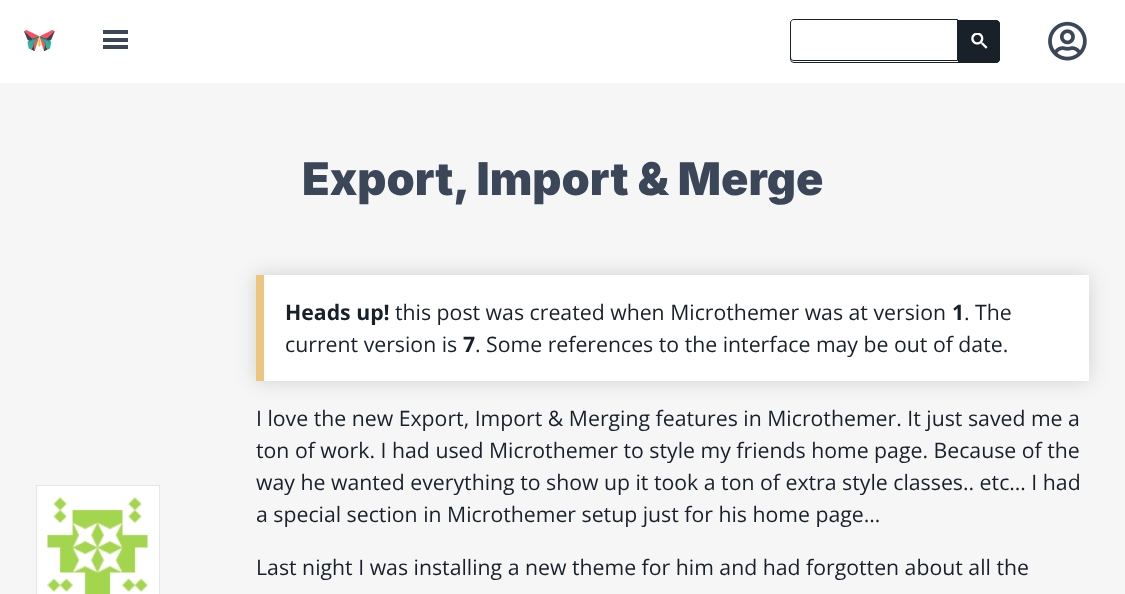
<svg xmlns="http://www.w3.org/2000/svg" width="1125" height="594">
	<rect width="100%" height="100%" fill="#F6F6F6" />
	<rect x="0" y="0" width="1125" height="83" fill="#FFFFFF" />
	<image x="24" y="30" width="31" height="21" href="assets/img1.png" />
	<rect x="103" y="30" width="25" height="4" fill="#3B4658" />
	<rect x="103" y="38" width="25" height="4" fill="#3B4658" />
	<rect x="103" y="45" width="25" height="4" fill="#3B4658" />
	<rect x="790.5" y="20.5" width="209" height="42" rx="3.5" fill="none" stroke="#18202A" />
	<path d="M794 19.5H957.5V60.5H794C792 60.5 790.5 59 790.5 57V23C790.5 21 792 19.5 794 19.5Z" fill="#FFFFFF" stroke="#18202A" />
	<path d="M958.5 20.5H996C998 20.5 999.5 22 999.5 24V59C999.5 61 998 62.5 996 62.5H958.5Z" fill="#18202A" stroke="#18202A" />
	<image x="971" y="33" width="17" height="16" href="assets/img2.png" />
	<image x="1048" y="21" width="39" height="40" href="assets/img3.png" />
	<text x="302" y="195" font-family="Inter" font-size="45.2" font-weight="900" fill="#3B4658">Export, Import &amp; Merge</text>
	<rect x="36.5" y="485.5" width="123" height="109" fill="#FFFFFF" stroke="#E6E6E6" />
	<image x="47" y="497" width="101" height="97" href="assets/img4.png" />
	<rect x="256" y="275" width="833" height="106" fill="#000000" fill-opacity="0.15" filter="blur(10px)" />
	<rect x="264" y="275" width="825" height="106" fill="#FFFFFF" />
	<rect x="256" y="275" width="8" height="106" fill="#ECC67F" />
	<text x="285" y="320" font-family="Open Sans" font-size="21.25" font-weight="700" fill="#18202A">Heads up!</text>
	<text x="395" y="320" font-family="Open Sans" font-size="21.25" fill="#18202A">this post was created when Microthemer was at version</text>
	<text x="952" y="320" font-family="Open Sans" font-size="21.25" font-weight="700" fill="#18202A">1</text>
	<g font-family="Open Sans" font-size="21.25" fill="#18202A">
		<text x="964" y="320">. The</text>
		<text x="285" y="352">current version is</text>
	</g>
	<text x="463" y="352" font-family="Open Sans" font-size="21.25" font-weight="700" fill="#18202A">7</text>
	<g font-family="Open Sans" font-size="21.25" fill="#18202A">
		<text x="475" y="352">. Some references to the interface may be out of date.</text>
		<text x="256" y="426">I love the new Export, Import &amp; Merging features in Microthemer. It just saved me a</text>
		<text x="256" y="458">ton of work. I had used Microthemer to style my friends home page. Because of the</text>
		<text x="256" y="490">way he wanted everything to show up it took a ton of extra style classes.. etc… I had</text>
		<text x="256" y="522">a special section in Microthemer setup just for his home page…</text>
		<text x="256" y="575">Last night I was installing a new theme for him and had forgotten about all the</text>
	</g>
</svg>
